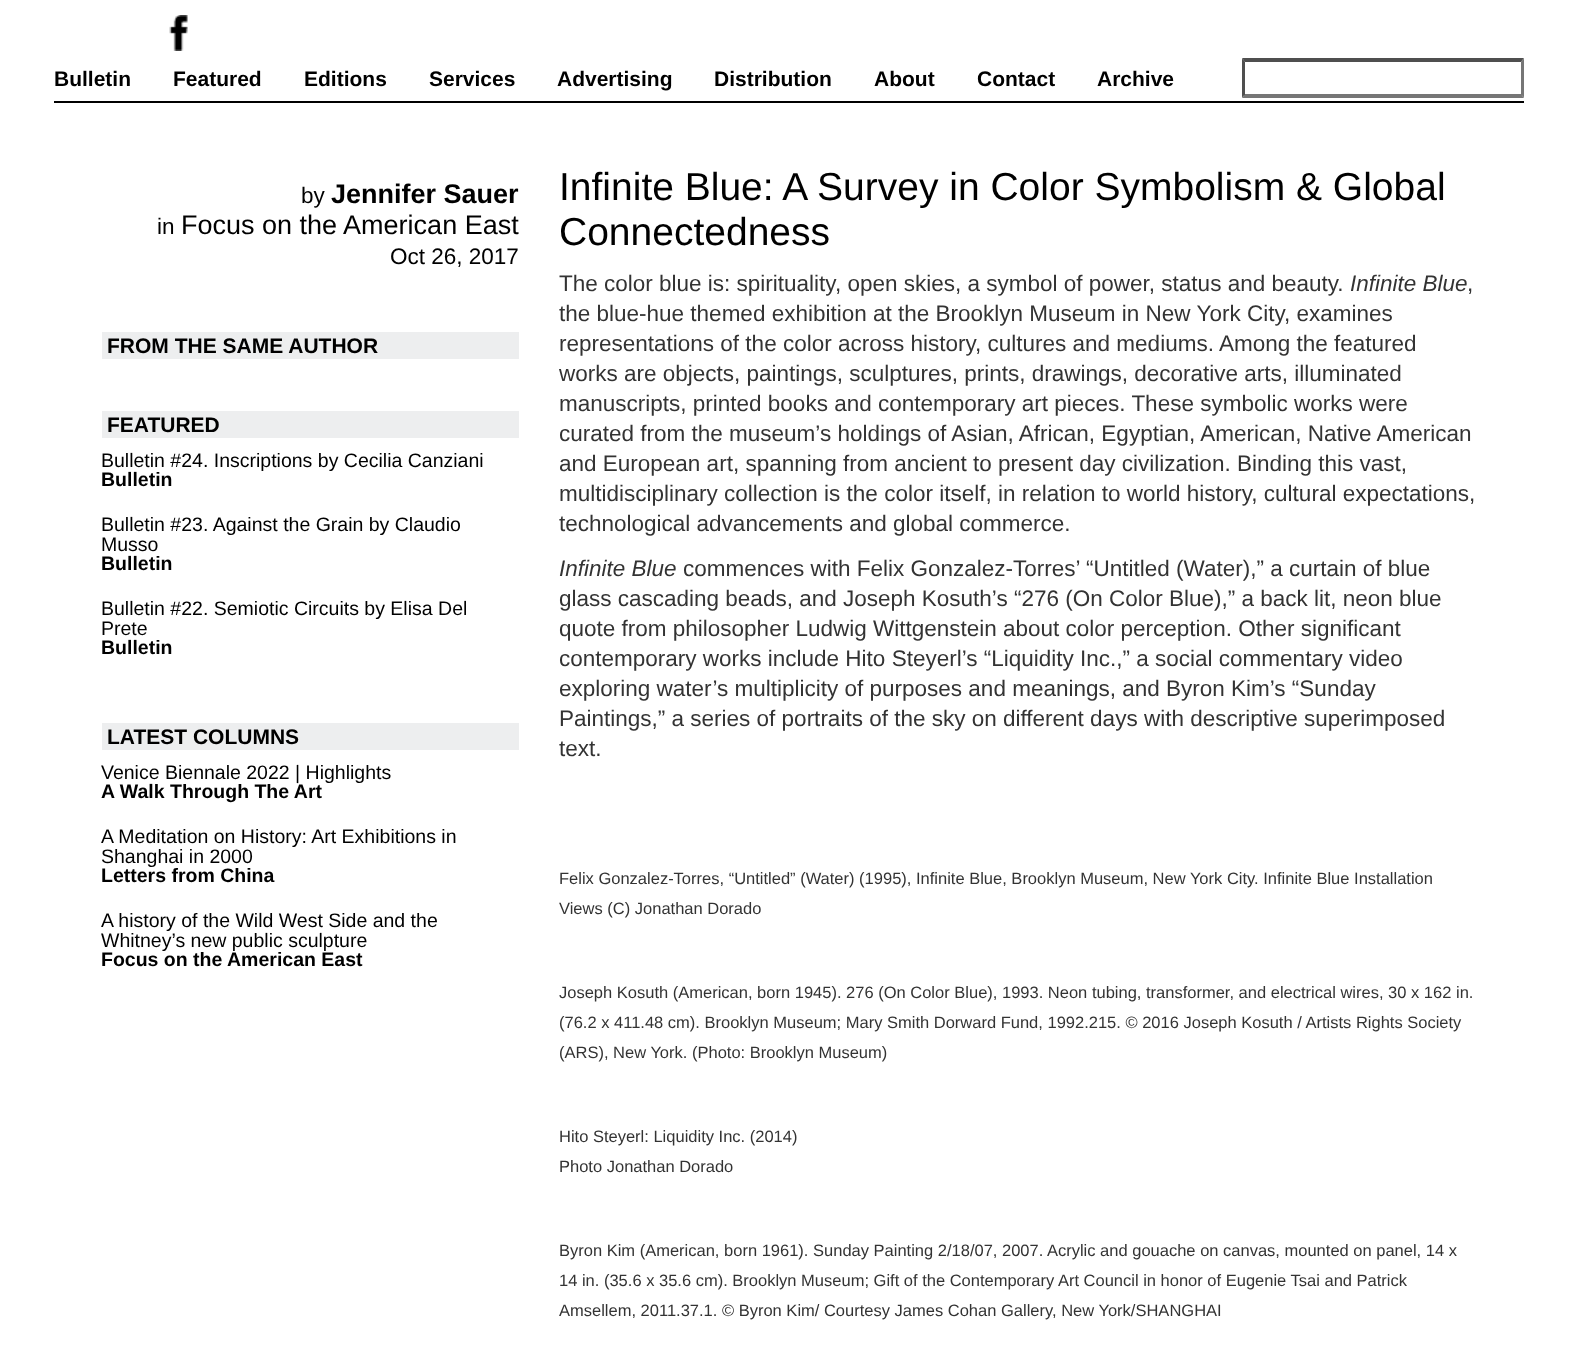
<svg xmlns="http://www.w3.org/2000/svg" width="1577" height="1370">
	<rect width="100%" height="100%" fill="#FFFFFF" />
	<image x="169" y="15" width="19" height="36" href="assets/img1.png" />
	<rect x="54" y="101" width="1470" height="2" fill="#000000" />
	<g font-family="Liberation Sans" font-size="21" font-weight="700" fill="#000000">
		<text x="54" y="86">Bulletin</text>
		<text x="173" y="86">Featured</text>
		<text x="304" y="86">Editions</text>
		<text x="429" y="86">Services</text>
		<text x="557" y="86">Advertising</text>
		<text x="714" y="86">Distribution</text>
		<text x="874" y="86">About</text>
		<text x="977" y="86">Contact</text>
		<text x="1097" y="86">Archive</text>
	</g>
	<path d="M1242 58H1524L1521 62H1245Z" fill="#4F4F4F" />
	<path d="M1524 58.5V97.5L1521 94.5V61.5Z" fill="#767676" />
	<path d="M1524 98H1242L1245 94H1521Z" fill="#767676" />
	<path d="M1242 97.5V58.5L1245 61.5V94.5Z" fill="#4F4F4F" />
	<text x="301" y="203" font-family="Liberation Sans" font-size="22.5" fill="#000000">by</text>
	<text x="331" y="203" font-family="Liberation Sans" font-size="27" font-weight="700" fill="#000000">Jennifer Sauer</text>
	<text x="157" y="234" font-family="Liberation Sans" font-size="22.5" fill="#000000">in</text>
	<text x="181" y="234" font-family="Liberation Sans" font-size="27" fill="#000000">Focus on the American East</text>
	<text x="390" y="264" font-family="Liberation Sans" font-size="22.5" fill="#000000">Oct 26, 2017</text>
	<rect x="102" y="332" width="417" height="27" fill="#EDEEEF" />
	<text x="107" y="353" font-family="Liberation Sans" font-size="21" font-weight="700" fill="#000000">FROM THE SAME AUTHOR</text>
	<rect x="102" y="411" width="417" height="27" fill="#EDEEEF" />
	<text x="107" y="432" font-family="Liberation Sans" font-size="21" font-weight="700" fill="#000000">FEATURED</text>
	<text x="101" y="467" font-family="Liberation Sans" font-size="19.5" fill="#000000">Bulletin #24. Inscriptions by Cecilia Canziani</text>
	<text x="101" y="486" font-family="Liberation Sans" font-size="19.5" font-weight="700" fill="#000000">Bulletin</text>
	<g font-family="Liberation Sans" font-size="19.5" fill="#000000">
		<text x="101" y="531">Bulletin #23. Against the Grain by Claudio</text>
		<text x="101" y="551">Musso</text>
	</g>
	<text x="101" y="570" font-family="Liberation Sans" font-size="19.5" font-weight="700" fill="#000000">Bulletin</text>
	<g font-family="Liberation Sans" font-size="19.5" fill="#000000">
		<text x="101" y="615">Bulletin #22. Semiotic Circuits by Elisa Del</text>
		<text x="101" y="635">Prete</text>
	</g>
	<text x="101" y="654" font-family="Liberation Sans" font-size="19.5" font-weight="700" fill="#000000">Bulletin</text>
	<rect x="102" y="723" width="417" height="27" fill="#EDEEEF" />
	<text x="107" y="744" font-family="Liberation Sans" font-size="21" font-weight="700" fill="#000000">LATEST COLUMNS</text>
	<text x="101" y="779" font-family="Liberation Sans" font-size="19.5" fill="#000000">Venice Biennale 2022 | Highlights</text>
	<text x="101" y="798" font-family="Liberation Sans" font-size="19.5" font-weight="700" fill="#000000">A Walk Through The Art</text>
	<g font-family="Liberation Sans" font-size="19.5" fill="#000000">
		<text x="101" y="843">A Meditation on History: Art Exhibitions in</text>
		<text x="101" y="863">Shanghai in 2000</text>
	</g>
	<text x="101" y="882" font-family="Liberation Sans" font-size="19.5" font-weight="700" fill="#000000">Letters from China</text>
	<g font-family="Liberation Sans" font-size="19.5" fill="#000000">
		<text x="101" y="927">A history of the Wild West Side and the</text>
		<text x="101" y="947">Whitney’s new public sculpture</text>
	</g>
	<text x="101" y="966" font-family="Liberation Sans" font-size="19.5" font-weight="700" fill="#000000">Focus on the American East</text>
	<g font-family="Liberation Sans" font-size="39" fill="#000000">
		<text x="559" y="200">Infinite Blue: A Survey in Color Symbolism &amp; Global</text>
		<text x="559" y="245">Connectedness</text>
	</g>
	<text x="559" y="291" font-family="Liberation Sans" font-size="22.5" fill="#333333">The color blue is: spirituality, open skies, a symbol of power, status and beauty.</text>
	<text x="1350" y="291" font-family="Liberation Sans" font-size="22.5" font-style="italic" fill="#333333">Infinite Blue</text>
	<g font-family="Liberation Sans" font-size="22.5" fill="#333333">
		<text x="1467" y="291">,</text>
		<text x="559" y="321">the blue-hue themed exhibition at the Brooklyn Museum in New York City, examines</text>
		<text x="559" y="351">representations of the color across history, cultures and mediums. Among the featured</text>
		<text x="559" y="381">works are objects, paintings, sculptures, prints, drawings, decorative arts, illuminated</text>
		<text x="559" y="411">manuscripts, printed books and contemporary art pieces. These symbolic works were</text>
		<text x="559" y="441">curated from the museum’s holdings of Asian, African, Egyptian, American, Native American</text>
		<text x="559" y="471">and European art, spanning from ancient to present day civilization. Binding this vast,</text>
		<text x="559" y="501">multidisciplinary collection is the color itself, in relation to world history, cultural expectations,</text>
		<text x="559" y="531">technological advancements and global commerce.</text>
	</g>
	<text x="559" y="576" font-family="Liberation Sans" font-size="22.5" font-style="italic" fill="#333333">Infinite Blue</text>
	<g font-family="Liberation Sans" font-size="22.5" fill="#333333">
		<text x="683" y="576">commences with Felix Gonzalez-Torres’ “Untitled (Water),” a curtain of blue</text>
		<text x="559" y="606">glass cascading beads, and Joseph Kosuth’s “276 (On Color Blue),” a back lit, neon blue</text>
		<text x="559" y="636">quote from philosopher Ludwig Wittgenstein about color perception. Other significant</text>
		<text x="559" y="666">contemporary works include Hito Steyerl’s “Liquidity Inc.,” a social commentary video</text>
		<text x="559" y="696">exploring water’s multiplicity of purposes and meanings, and Byron Kim’s “Sunday</text>
		<text x="559" y="726">Paintings,” a series of portraits of the sky on different days with descriptive superimposed</text>
		<text x="559" y="756">text.</text>
	</g>
	<g font-family="Liberation Sans" font-size="16.5" fill="#333333">
		<text x="559" y="884">Felix Gonzalez-Torres, “Untitled” (Water) (1995), Infinite Blue, Brooklyn Museum, New York City. Infinite Blue Installation</text>
		<text x="559" y="914">Views (C) Jonathan Dorado</text>
		<text x="559" y="998">Joseph Kosuth (American, born 1945). 276 (On Color Blue), 1993. Neon tubing, transformer, and electrical wires, 30 x 162 in.</text>
		<text x="559" y="1028">(76.2 x 411.48 cm). Brooklyn Museum; Mary Smith Dorward Fund, 1992.215. © 2016 Joseph Kosuth / Artists Rights Society</text>
		<text x="559" y="1058">(ARS), New York. (Photo: Brooklyn Museum)</text>
		<text x="559" y="1142">Hito Steyerl: Liquidity Inc. (2014)</text>
		<text x="559" y="1172">Photo Jonathan Dorado</text>
		<text x="559" y="1256">Byron Kim (American, born 1961). Sunday Painting 2/18/07, 2007. Acrylic and gouache on canvas, mounted on panel, 14 x</text>
		<text x="559" y="1286">14 in. (35.6 x 35.6 cm). Brooklyn Museum; Gift of the Contemporary Art Council in honor of Eugenie Tsai and Patrick</text>
		<text x="559" y="1316">Amsellem, 2011.37.1. © Byron Kim/ Courtesy James Cohan Gallery, New York/SHANGHAI</text>
	</g>
</svg>
